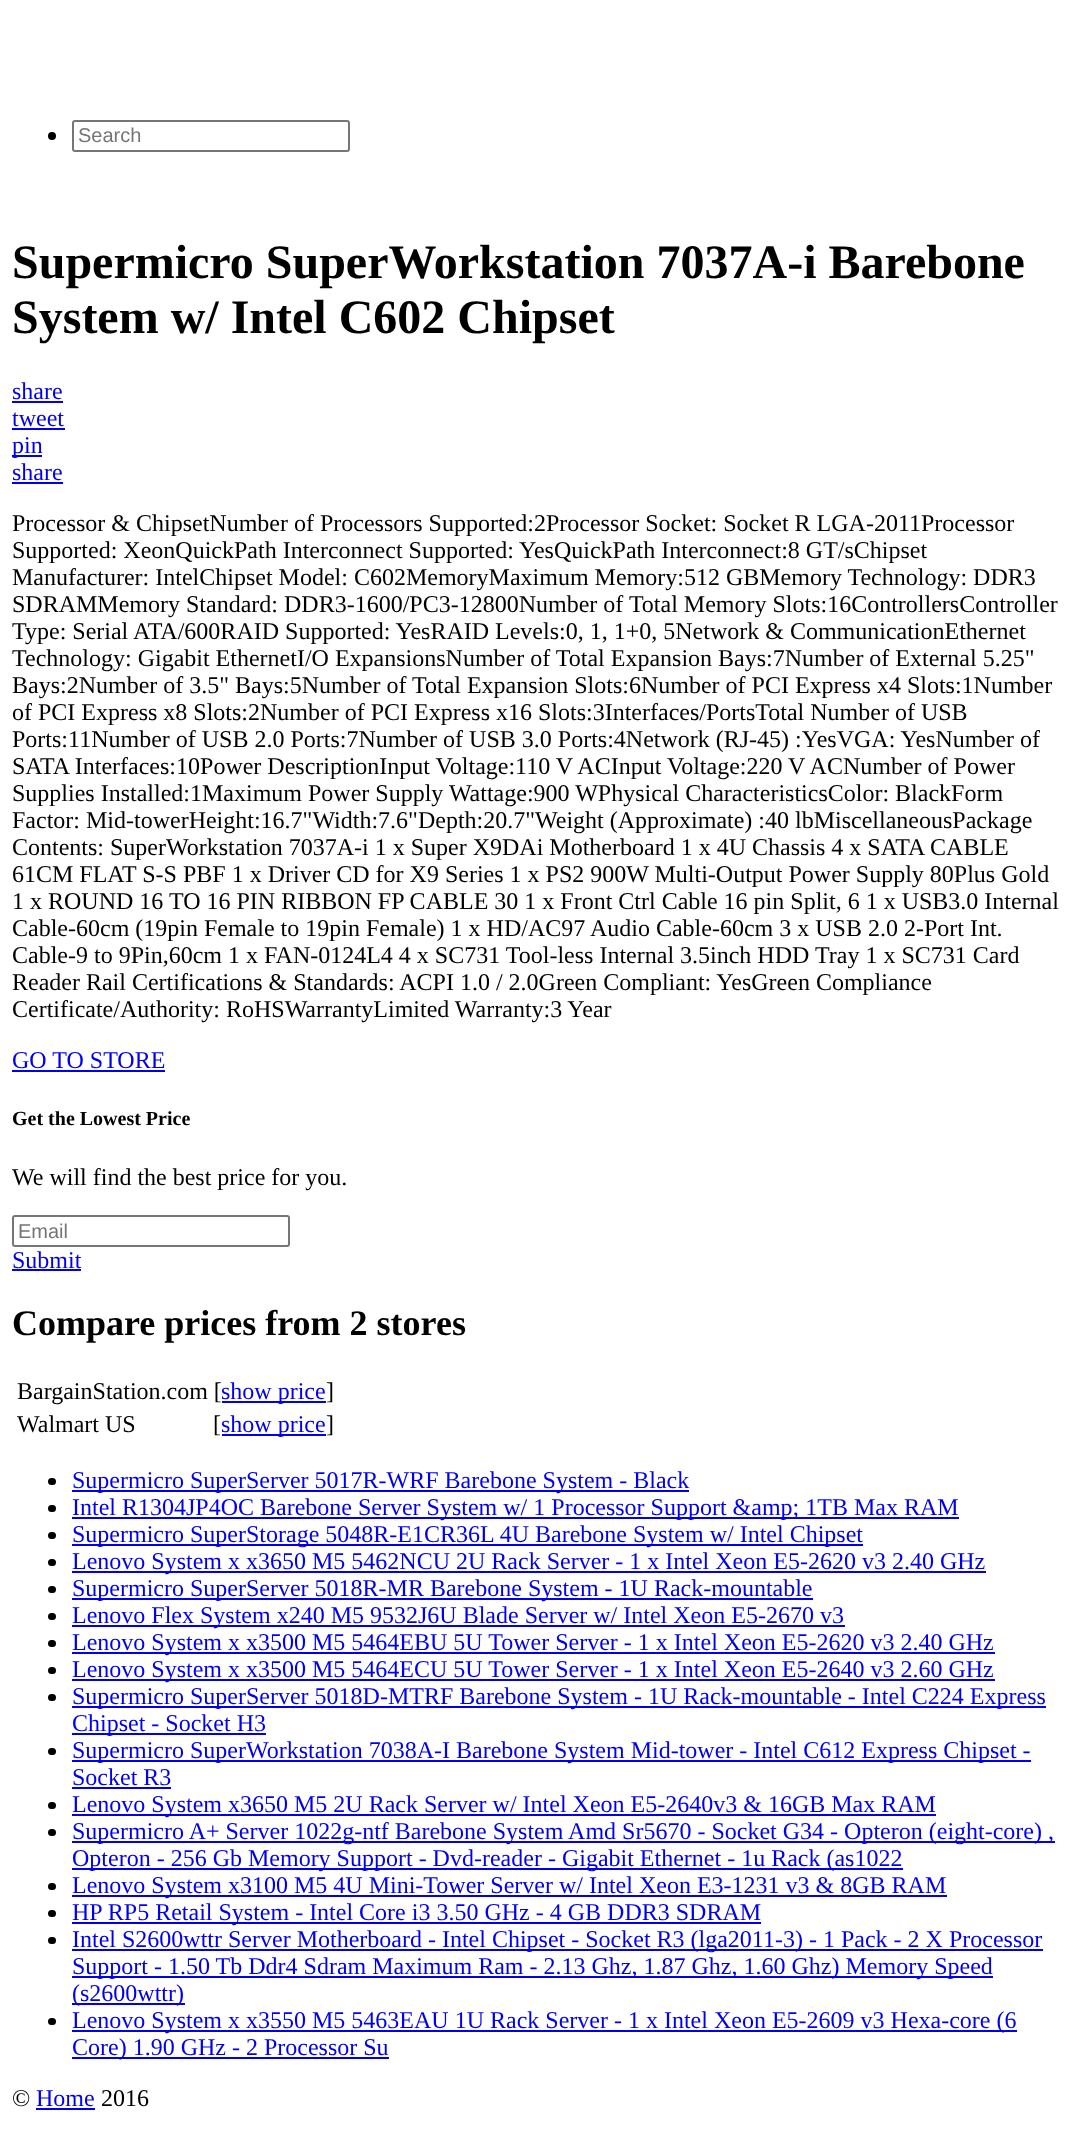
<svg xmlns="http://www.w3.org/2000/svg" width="1078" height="2144">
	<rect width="100%" height="100%" fill="#FFFFFF" />
	<circle cx="52" cy="136" r="4" fill="#000000" />
	<rect x="73" y="121" width="276" height="30" rx="2" fill="none" stroke="#767676" stroke-width="2" />
	<text x="78" y="142" font-family="Liberation Sans" font-size="20" fill="#757575">Search</text>
	<g font-family="Liberation Serif" font-size="48" font-weight="700" fill="#000000">
		<text x="12" y="278">Supermicro SuperWorkstation 7037A-i Barebone</text>
		<text x="12" y="333">System w/ Intel C602 Chipset</text>
	</g>
	<text x="12" y="399" font-family="Liberation Serif" font-size="24" fill="#0000EE">share</text>
	<rect x="12" y="401" width="51" height="2" fill="#0000EE" />
	<text x="12" y="426" font-family="Liberation Serif" font-size="24" fill="#0000EE">tweet</text>
	<rect x="12" y="428" width="53" height="2" fill="#0000EE" />
	<rect x="12" y="455" width="30" height="2" fill="#0000EE" />
	<g font-family="Liberation Serif" font-size="24" fill="#0000EE">
		<text x="12" y="453">pin</text>
		<text x="12" y="480">share</text>
	</g>
	<rect x="12" y="482" width="51" height="2" fill="#0000EE" />
	<g font-family="Liberation Serif" font-size="24" fill="#000000">
		<text x="12" y="531">Processor &amp; ChipsetNumber of Processors Supported:2Processor Socket: Socket R LGA-2011Processor</text>
		<text x="12" y="558">Supported: XeonQuickPath Interconnect Supported: YesQuickPath Interconnect:8 GT/sChipset</text>
		<text x="12" y="585">Manufacturer: IntelChipset Model: C602MemoryMaximum Memory:512 GBMemory Technology: DDR3</text>
		<text x="12" y="612">SDRAMMemory Standard: DDR3-1600/PC3-12800Number of Total Memory Slots:16ControllersController</text>
		<text x="12" y="639">Type: Serial ATA/600RAID Supported: YesRAID Levels:0, 1, 1+0, 5Network &amp; CommunicationEthernet</text>
		<text x="12" y="666">Technology: Gigabit EthernetI/O ExpansionsNumber of Total Expansion Bays:7Number of External 5.25"</text>
		<text x="12" y="693">Bays:2Number of 3.5" Bays:5Number of Total Expansion Slots:6Number of PCI Express x4 Slots:1Number</text>
		<text x="12" y="720">of PCI Express x8 Slots:2Number of PCI Express x16 Slots:3Interfaces/PortsTotal Number of USB</text>
		<text x="12" y="747">Ports:11Number of USB 2.0 Ports:7Number of USB 3.0 Ports:4Network (RJ-45) :YesVGA: YesNumber of</text>
		<text x="12" y="774">SATA Interfaces:10Power DescriptionInput Voltage:110 V ACInput Voltage:220 V ACNumber of Power</text>
		<text x="12" y="801">Supplies Installed:1Maximum Power Supply Wattage:900 WPhysical CharacteristicsColor: BlackForm</text>
		<text x="12" y="828">Factor: Mid-towerHeight:16.7"Width:7.6"Depth:20.7"Weight (Approximate) :40 lbMiscellaneousPackage</text>
		<text x="12" y="855">Contents: SuperWorkstation 7037A-i 1 x Super X9DAi Motherboard 1 x 4U Chassis 4 x SATA CABLE</text>
		<text x="12" y="882">61CM FLAT S-S PBF 1 x Driver CD for X9 Series 1 x PS2 900W Multi-Output Power Supply 80Plus Gold</text>
		<text x="12" y="909">1 x ROUND 16 TO 16 PIN RIBBON FP CABLE 30 1 x Front Ctrl Cable 16 pin Split, 6 1 x USB3.0 Internal</text>
		<text x="12" y="936">Cable-60cm (19pin Female to 19pin Female) 1 x HD/AC97 Audio Cable-60cm 3 x USB 2.0 2-Port Int.</text>
		<text x="12" y="963">Cable-9 to 9Pin,60cm 1 x FAN-0124L4 4 x SC731 Tool-less Internal 3.5inch HDD Tray 1 x SC731 Card</text>
		<text x="12" y="990">Reader Rail Certifications &amp; Standards: ACPI 1.0 / 2.0Green Compliant: YesGreen Compliance</text>
		<text x="12" y="1017">Certificate/Authority: RoHSWarrantyLimited Warranty:3 Year</text>
	</g>
	<text x="12" y="1068" font-family="Liberation Serif" font-size="24" fill="#0000EE">GO TO STORE</text>
	<rect x="12" y="1070" width="153" height="2" fill="#0000EE" />
	<text x="12" y="1125" font-family="Liberation Serif" font-size="20" font-weight="700" fill="#000000">Get the Lowest Price</text>
	<text x="12" y="1185" font-family="Liberation Serif" font-size="24" fill="#000000">We will find the best price for you.</text>
	<rect x="13" y="1216" width="276" height="30" rx="2" fill="none" stroke="#767676" stroke-width="2" />
	<text x="18" y="1238" font-family="Liberation Sans" font-size="20" fill="#757575">Email</text>
	<text x="12" y="1268" font-family="Liberation Serif" font-size="24" fill="#0000EE">Submit</text>
	<rect x="12" y="1269" width="69" height="2" fill="#0000EE" />
	<text x="12" y="1335" font-family="Liberation Serif" font-size="36" font-weight="700" fill="#000000">Compare prices from 2 stores</text>
	<text x="17" y="1399" font-family="Liberation Serif" font-size="24" fill="#000000">BargainStation.com [</text>
	<rect x="222" y="1401" width="104" height="2" fill="#0000EE" />
	<text x="221" y="1399" font-family="Liberation Serif" font-size="24" fill="#0000EE">show price</text>
	<g font-family="Liberation Serif" font-size="24" fill="#000000">
		<text x="326" y="1399">]</text>
		<text x="17" y="1432">Walmart US</text>
		<text x="213" y="1432">[</text>
	</g>
	<rect x="222" y="1434" width="104" height="2" fill="#0000EE" />
	<text x="221" y="1432" font-family="Liberation Serif" font-size="24" fill="#0000EE">show price</text>
	<text x="326" y="1432" font-family="Liberation Serif" font-size="24" fill="#000000">]</text>
	<rect x="48" y="1478" width="8" height="7" rx="3.5" fill="#000000" />
	<rect x="72" y="1490" width="617" height="2" fill="#0000EE" />
	<text x="72" y="1488" font-family="Liberation Serif" font-size="24" fill="#0000EE">Supermicro SuperServer 5017R-WRF Barebone System - Black</text>
	<rect x="48" y="1505" width="8" height="7" rx="3.5" fill="#000000" />
	<rect x="72" y="1517" width="887" height="2" fill="#0000EE" />
	<text x="72" y="1515" font-family="Liberation Serif" font-size="24" fill="#0000EE">Intel R1304JP4OC Barebone Server System w/ 1 Processor Support &amp;amp; 1TB Max RAM</text>
	<rect x="48" y="1532" width="8" height="7" rx="3.5" fill="#000000" />
	<rect x="72" y="1544" width="791" height="2" fill="#0000EE" />
	<text x="72" y="1542" font-family="Liberation Serif" font-size="24" fill="#0000EE">Supermicro SuperStorage 5048R-E1CR36L 4U Barebone System w/ Intel Chipset</text>
	<rect x="48" y="1559" width="8" height="7" rx="3.5" fill="#000000" />
	<rect x="72" y="1571" width="914" height="2" fill="#0000EE" />
	<text x="72" y="1569" font-family="Liberation Serif" font-size="24" fill="#0000EE">Lenovo System x x3650 M5 5462NCU 2U Rack Server - 1 x Intel Xeon E5-2620 v3 2.40 GHz</text>
	<rect x="48" y="1586" width="8" height="7" rx="3.5" fill="#000000" />
	<rect x="72" y="1598" width="741" height="2" fill="#0000EE" />
	<text x="72" y="1596" font-family="Liberation Serif" font-size="24" fill="#0000EE">Supermicro SuperServer 5018R-MR Barebone System - 1U Rack-mountable</text>
	<rect x="48" y="1613" width="8" height="7" rx="3.5" fill="#000000" />
	<rect x="72" y="1625" width="773" height="2" fill="#0000EE" />
	<text x="72" y="1623" font-family="Liberation Serif" font-size="24" fill="#0000EE">Lenovo Flex System x240 M5 9532J6U Blade Server w/ Intel Xeon E5-2670 v3</text>
	<rect x="48" y="1640" width="8" height="7" rx="3.5" fill="#000000" />
	<rect x="72" y="1652" width="923" height="2" fill="#0000EE" />
	<text x="72" y="1650" font-family="Liberation Serif" font-size="24" fill="#0000EE">Lenovo System x x3500 M5 5464EBU 5U Tower Server - 1 x Intel Xeon E5-2620 v3 2.40 GHz</text>
	<rect x="48" y="1667" width="8" height="7" rx="3.5" fill="#000000" />
	<rect x="72" y="1679" width="923" height="2" fill="#0000EE" />
	<text x="72" y="1677" font-family="Liberation Serif" font-size="24" fill="#0000EE">Lenovo System x x3500 M5 5464ECU 5U Tower Server - 1 x Intel Xeon E5-2640 v3 2.60 GHz</text>
	<rect x="48" y="1694" width="8" height="7" rx="3.5" fill="#000000" />
	<rect x="72" y="1706" width="974" height="2" fill="#0000EE" />
	<text x="72" y="1704" font-family="Liberation Serif" font-size="24" fill="#0000EE">Supermicro SuperServer 5018D-MTRF Barebone System - 1U Rack-mountable - Intel C224 Express</text>
	<rect x="72" y="1733" width="194" height="2" fill="#0000EE" />
	<text x="72" y="1731" font-family="Liberation Serif" font-size="24" fill="#0000EE">Chipset - Socket H3</text>
	<rect x="48" y="1748" width="8" height="7" rx="3.5" fill="#000000" />
	<rect x="72" y="1760" width="959" height="2" fill="#0000EE" />
	<g font-family="Liberation Serif" font-size="24" fill="#0000EE">
		<text x="72" y="1758">Supermicro SuperWorkstation 7038A-I Barebone System Mid-tower - Intel C612 Express Chipset -</text>
		<text x="72" y="1785">Socket R3</text>
	</g>
	<rect x="72" y="1787" width="99" height="2" fill="#0000EE" />
	<rect x="48" y="1802" width="8" height="7" rx="3.5" fill="#000000" />
	<rect x="72" y="1814" width="864" height="2" fill="#0000EE" />
	<text x="72" y="1812" font-family="Liberation Serif" font-size="24" fill="#0000EE">Lenovo System x3650 M5 2U Rack Server w/ Intel Xeon E5-2640v3 &amp; 16GB Max RAM</text>
	<rect x="48" y="1829" width="8" height="7" rx="3.5" fill="#000000" />
	<rect x="72" y="1841" width="983" height="2" fill="#0000EE" />
	<text x="72" y="1839" font-family="Liberation Serif" font-size="24" fill="#0000EE">Supermicro A+ Server 1022g-ntf Barebone System Amd Sr5670 - Socket G34 - Opteron (eight-core) ,</text>
	<rect x="72" y="1868" width="831" height="2" fill="#0000EE" />
	<text x="72" y="1866" font-family="Liberation Serif" font-size="24" fill="#0000EE">Opteron - 256 Gb Memory Support - Dvd-reader - Gigabit Ethernet - 1u Rack (as1022</text>
	<rect x="48" y="1883" width="8" height="7" rx="3.5" fill="#000000" />
	<rect x="72" y="1895" width="875" height="2" fill="#0000EE" />
	<text x="72" y="1893" font-family="Liberation Serif" font-size="24" fill="#0000EE">Lenovo System x3100 M5 4U Mini-Tower Server w/ Intel Xeon E3-1231 v3 &amp; 8GB RAM</text>
	<rect x="48" y="1910" width="8" height="7" rx="3.5" fill="#000000" />
	<rect x="72" y="1922" width="689" height="2" fill="#0000EE" />
	<text x="72" y="1920" font-family="Liberation Serif" font-size="24" fill="#0000EE">HP RP5 Retail System - Intel Core i3 3.50 GHz - 4 GB DDR3 SDRAM</text>
	<rect x="48" y="1937" width="8" height="7" rx="3.5" fill="#000000" />
	<rect x="72" y="1949" width="971" height="2" fill="#0000EE" />
	<text x="72" y="1947" font-family="Liberation Serif" font-size="24" fill="#0000EE">Intel S2600wttr Server Motherboard - Intel Chipset - Socket R3 (lga2011-3) - 1 Pack - 2 X Processor</text>
	<rect x="72" y="1976" width="921" height="2" fill="#0000EE" />
	<text x="72" y="1974" font-family="Liberation Serif" font-size="24" fill="#0000EE">Support - 1.50 Tb Ddr4 Sdram Maximum Ram - 2.13 Ghz, 1.87 Ghz, 1.60 Ghz) Memory Speed</text>
	<rect x="72" y="2003" width="113" height="2" fill="#0000EE" />
	<text x="72" y="2001" font-family="Liberation Serif" font-size="24" fill="#0000EE">(s2600wttr)</text>
	<rect x="48" y="2018" width="8" height="7" rx="3.5" fill="#000000" />
	<rect x="72" y="2030" width="945" height="2" fill="#0000EE" />
	<text x="72" y="2028" font-family="Liberation Serif" font-size="24" fill="#0000EE">Lenovo System x x3550 M5 5463EAU 1U Rack Server - 1 x Intel Xeon E5-2609 v3 Hexa-core (6</text>
	<rect x="72" y="2057" width="317" height="2" fill="#0000EE" />
	<text x="72" y="2055" font-family="Liberation Serif" font-size="24" fill="#0000EE">Core) 1.90 GHz - 2 Processor Su</text>
	<text x="12" y="2106" font-family="Liberation Serif" font-size="24" fill="#000000">©</text>
	<text x="36" y="2106" font-family="Liberation Serif" font-size="24" fill="#0000EE">Home</text>
	<rect x="36" y="2108" width="59" height="2" fill="#0000EE" />
	<text x="101" y="2106" font-family="Liberation Serif" font-size="24" fill="#000000">2016</text>
</svg>
